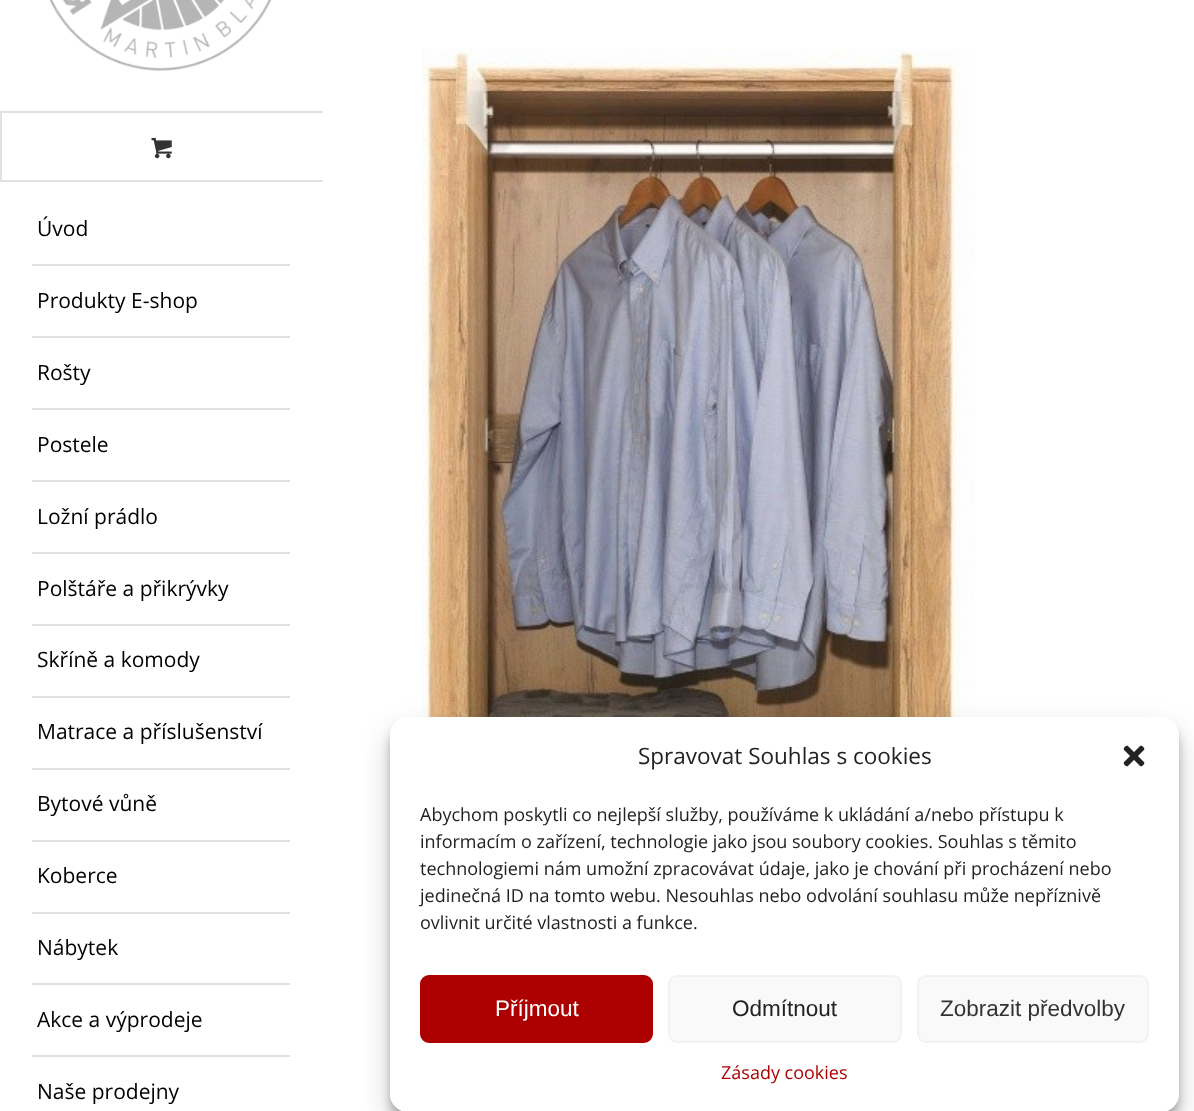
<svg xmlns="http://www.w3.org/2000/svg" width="1194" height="1111">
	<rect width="100%" height="100%" fill="#FFFFFF" />
	<rect x="0" y="111" width="323" height="2" fill="#E1E1E1" />
	<image x="49" y="0" width="223" height="71" href="assets/img1.png" />
	<rect x="0" y="180" width="323" height="2" fill="#E1E1E1" />
	<rect x="0" y="113" width="2" height="69" fill="#E1E1E1" />
	<image x="151" y="138" width="21" height="21" href="assets/img2.png" />
	<rect x="32" y="264" width="258" height="2" fill="#E1E1E1" />
	<text x="37" y="236" font-family="Open Sans" font-size="21" fill="#000000">Úvod</text>
	<rect x="32" y="336" width="258" height="2" fill="#E1E1E1" />
	<text x="37" y="308" font-family="Open Sans" font-size="21" fill="#000000">Produkty E-shop</text>
	<rect x="32" y="408" width="258" height="2" fill="#E1E1E1" />
	<text x="37" y="380" font-family="Open Sans" font-size="21" fill="#000000">Rošty</text>
	<rect x="32" y="480" width="258" height="2" fill="#E1E1E1" />
	<text x="37" y="452" font-family="Open Sans" font-size="21" fill="#000000">Postele</text>
	<rect x="32" y="552" width="258" height="2" fill="#E1E1E1" />
	<text x="37" y="524" font-family="Open Sans" font-size="21" fill="#000000">Ložní prádlo</text>
	<rect x="32" y="624" width="258" height="2" fill="#E1E1E1" />
	<text x="37" y="596" font-family="Open Sans" font-size="21" fill="#000000">Polštáře a přikrývky</text>
	<rect x="32" y="696" width="258" height="2" fill="#E1E1E1" />
	<text x="37" y="667" font-family="Open Sans" font-size="21" fill="#000000">Skříně a komody</text>
	<rect x="32" y="768" width="258" height="2" fill="#E1E1E1" />
	<text x="37" y="739" font-family="Open Sans" font-size="21" fill="#000000">Matrace a příslušenství</text>
	<rect x="32" y="840" width="258" height="2" fill="#E1E1E1" />
	<text x="37" y="811" font-family="Open Sans" font-size="21" fill="#000000">Bytové vůně</text>
	<rect x="32" y="912" width="258" height="2" fill="#E1E1E1" />
	<text x="37" y="883" font-family="Open Sans" font-size="21" fill="#000000">Koberce</text>
	<rect x="32" y="983" width="258" height="2" fill="#E1E1E1" />
	<text x="37" y="955" font-family="Open Sans" font-size="21" fill="#000000">Nábytek</text>
	<rect x="32" y="1055" width="258" height="2" fill="#E1E1E1" />
	<g font-family="Open Sans" font-size="21" fill="#000000">
		<text x="37" y="1027">Akce a výprodeje</text>
		<text x="37" y="1099">Naše prodejny</text>
	</g>
	<image x="422" y="48" width="553" height="669" href="assets/img3.png" />
	<rect x="390" y="726" width="789" height="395" rx="18" fill="#000000" fill-opacity="0.23" filter="blur(4.5px)" />
	<rect x="390" y="732" width="789" height="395" rx="18" fill="#000000" fill-opacity="0.19" filter="blur(15px)" />
	<rect x="390" y="717" width="789" height="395" rx="18" fill="#FFFFFF" />
	<text x="638" y="764" font-family="Open Sans" font-size="22.5" fill="#222222">Spravovat Souhlas s cookies</text>
	<image x="1123" y="745" width="22" height="22" href="assets/img4.png" />
	<g font-family="Open Sans" font-size="18" fill="#222222">
		<text x="420" y="821">Abychom poskytli co nejlepší služby, používáme k ukládání a/nebo přístupu k</text>
		<text x="420" y="848">informacím o zařízení, technologie jako jsou soubory cookies. Souhlas s těmito</text>
		<text x="420" y="875">technologiemi nám umožní zpracovávat údaje, jako je chování při procházení nebo</text>
		<text x="420" y="902">jedinečná ID na tomto webu. Nesouhlas nebo odvolání souhlasu může nepříznivě</text>
		<text x="420" y="929">ovlivnit určité vlastnosti a funkce.</text>
	</g>
	<rect x="421" y="976" width="231" height="66" rx="8" fill="#AD0000" stroke="#AD0000" stroke-width="2" />
	<text x="495" y="1016" font-family="Liberation Sans" font-size="22.5" fill="#FFFFFF">Příjmout</text>
	<rect x="669" y="976" width="232" height="66" rx="8" fill="#F9F9F9" stroke="#F2F2F2" stroke-width="2" />
	<text x="732" y="1016" font-family="Liberation Sans" font-size="22.5" fill="#222222">Odmítnout</text>
	<rect x="918" y="976" width="230" height="66" rx="8" fill="#F9F9F9" stroke="#F2F2F2" stroke-width="2" />
	<text x="940" y="1016" font-family="Liberation Sans" font-size="22.5" fill="#333333">Zobrazit předvolby</text>
	<text x="721" y="1079" font-family="Open Sans" font-size="18" fill="#AD0000">Zásady cookies</text>
</svg>
